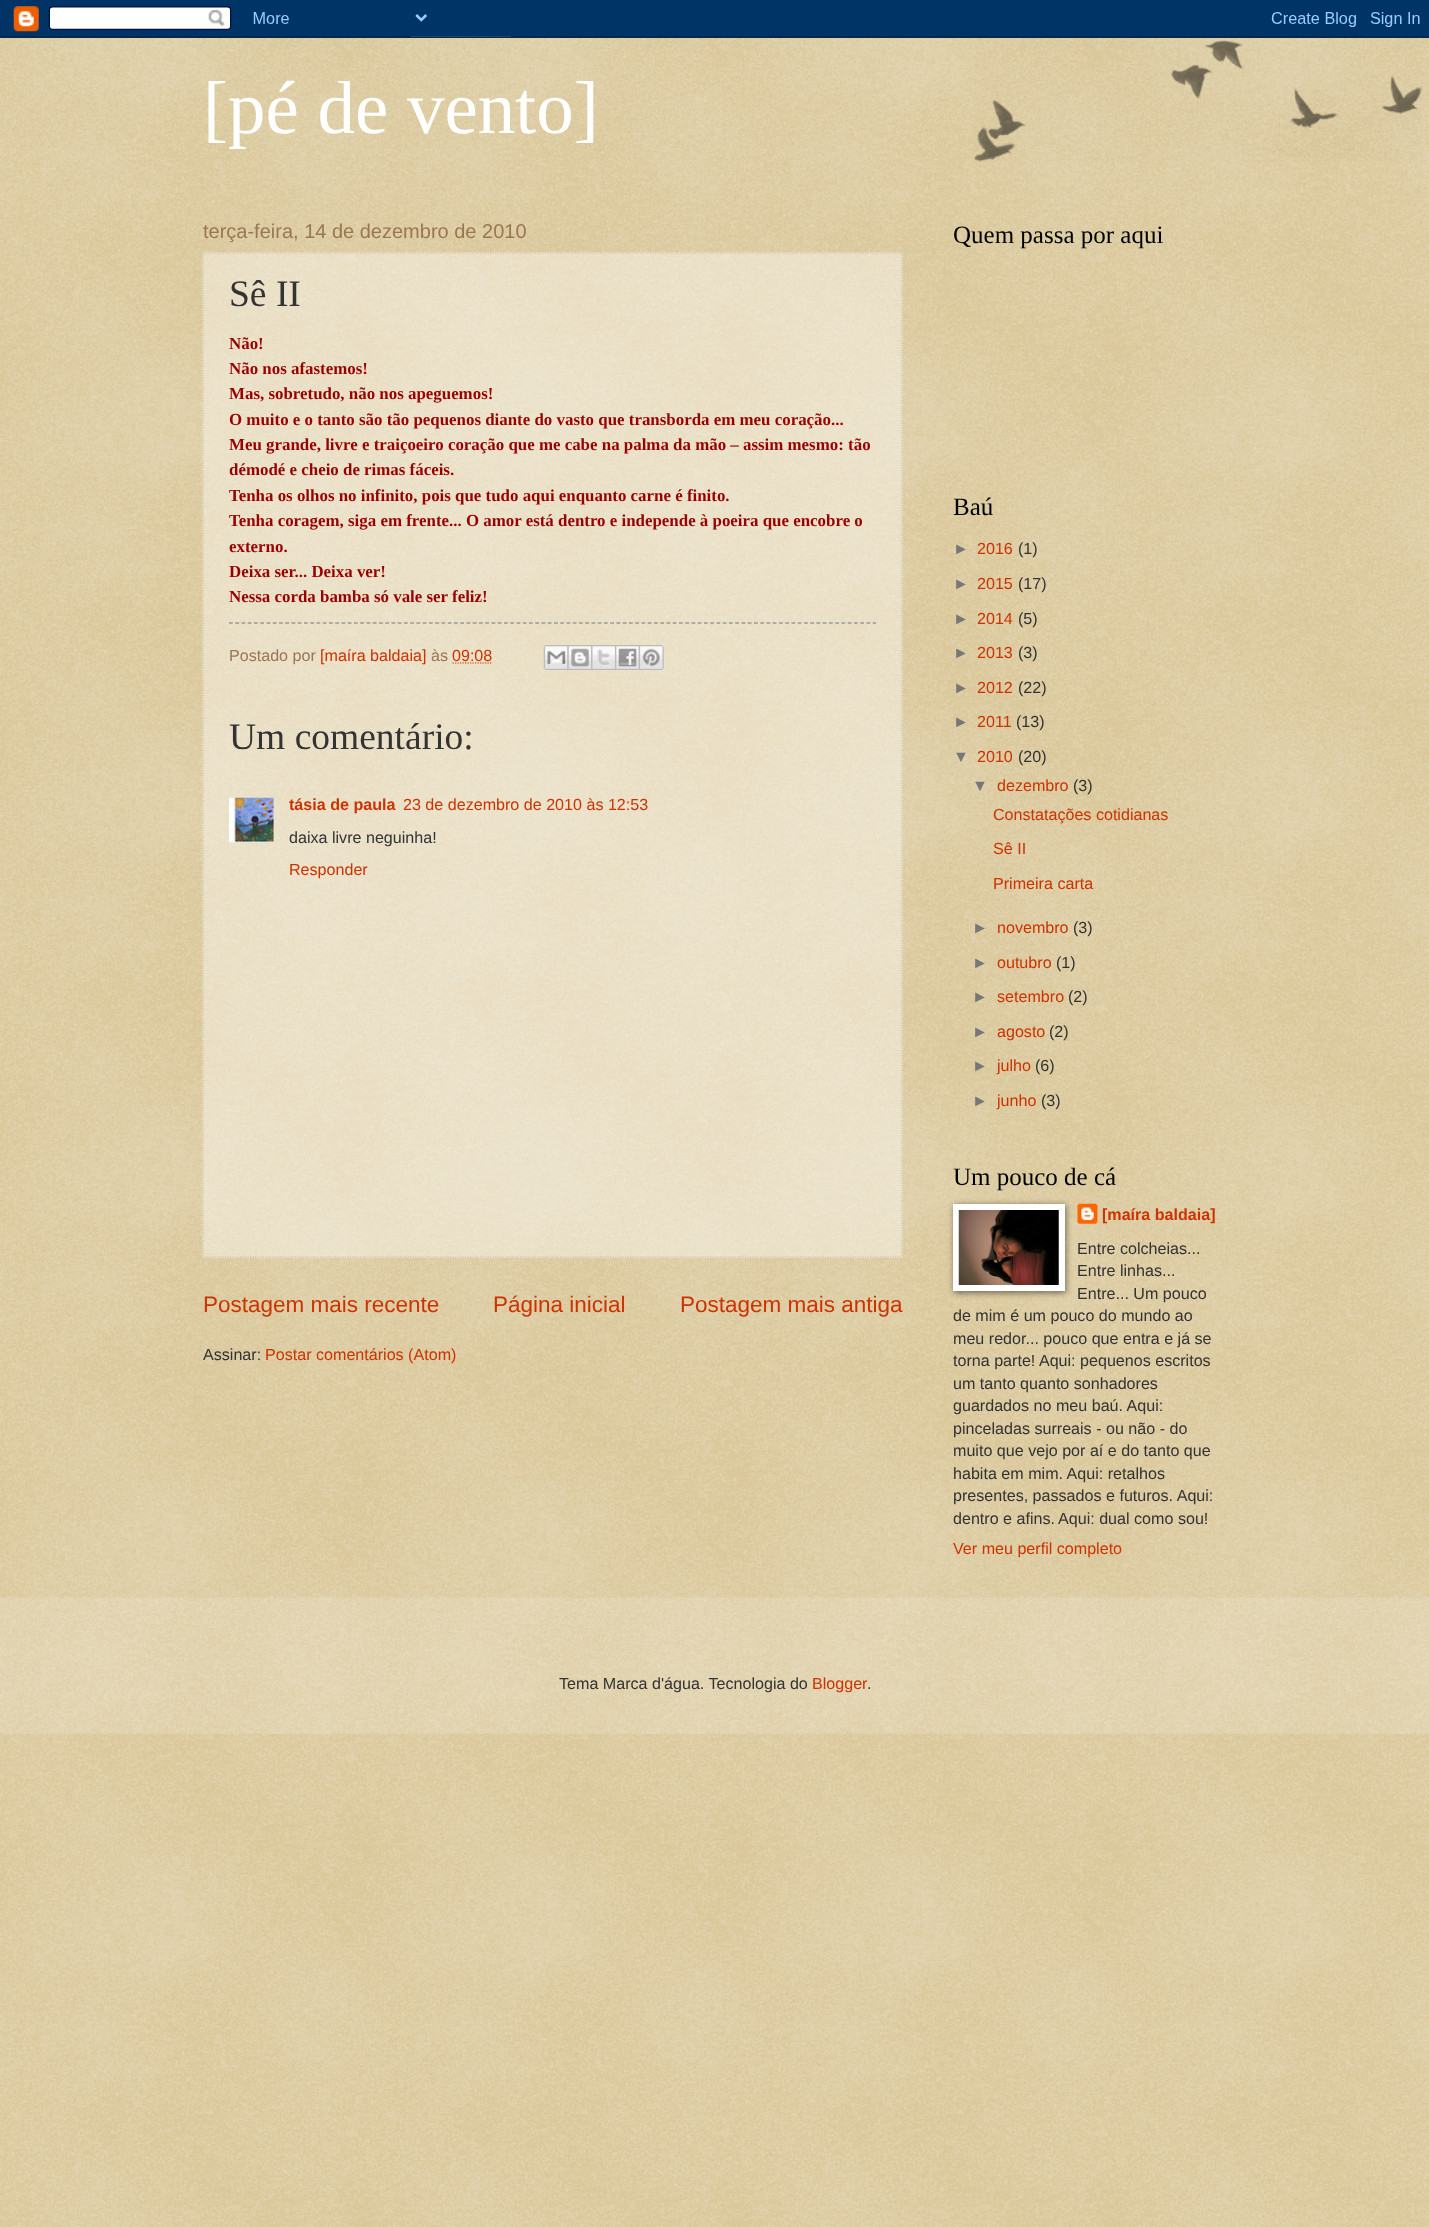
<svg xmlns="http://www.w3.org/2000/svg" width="1429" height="2227">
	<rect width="100%" height="100%" fill="#C0A154" />
	<image x="0" y="36" width="1429" height="2191" href="assets/img1.png" />
	<image x="0" y="0" width="1429" height="38" href="assets/img2.png" />
	<image x="974" y="40" width="449" height="122" href="assets/img3.png" />
	<text x="203" y="133" font-family="Liberation Serif" font-size="75" fill="#FFFFFF">[pé de vento]</text>
	<text x="203" y="238" font-family="Liberation Sans" font-size="20" fill="#997755">terça-feira, 14 de dezembro de 2010</text>
	<rect x="202" y="252" width="701" height="1006" fill="#FFFFFF" fill-opacity="0.4" />
	<path d="M202.5 253H902.5" fill="none" stroke="#CCBB99" stroke-width="1.2" stroke-dasharray="1.25 1.25" />
	<path d="M902 252.5V1257.5" fill="none" stroke="#CCBB99" stroke-width="1.2" stroke-dasharray="1.25 1.25" />
	<path d="M202.5 1257H902.5" fill="none" stroke="#CCBB99" stroke-width="1.2" stroke-dasharray="1.25 1.25" />
	<path d="M203 252.5V1257.5" fill="none" stroke="#CCBB99" stroke-width="1.2" stroke-dasharray="1.25 1.25" />
	<text x="229" y="306" font-family="Liberation Serif" font-size="37.5" fill="#333333">Sê II</text>
	<g font-family="Liberation Serif" font-size="16.9" font-weight="700" fill="#990000">
		<text x="229" y="349">Não!</text>
		<text x="229" y="374">Não nos afastemos!</text>
		<text x="229" y="399">Mas, sobretudo, não nos apeguemos!</text>
		<text x="229" y="425">O muito e o tanto são tão pequenos diante do vasto que transborda em meu coração...</text>
		<text x="229" y="450">Meu grande, livre e traiçoeiro coração que me cabe na palma da mão – assim mesmo: tão</text>
		<text x="229" y="475">démodé e cheio de rimas fáceis.</text>
		<text x="229" y="501">Tenha os olhos no infinito, pois que tudo aqui enquanto carne é finito.</text>
		<text x="229" y="526">Tenha coragem, siga em frente... O amor está dentro e independe à poeira que encobre o</text>
		<text x="229" y="552">externo.</text>
		<text x="229" y="577">Deixa ser... Deixa ver!</text>
		<text x="229" y="602">Nessa corda bamba só vale ser feliz!</text>
	</g>
	<path d="M229 623H876" fill="none" stroke="#777777" stroke-width="1.2" stroke-dasharray="3.75 2.5" />
	<text x="229" y="661" font-family="Liberation Sans" font-size="16.1" fill="#997755">Postado por</text>
	<text x="320" y="661" font-family="Liberation Sans" font-size="16.1" fill="#CC3300">[maíra baldaia]</text>
	<text x="431" y="661" font-family="Liberation Sans" font-size="16.1" fill="#997755">às</text>
	<text x="452" y="661" font-family="Liberation Sans" font-size="16.1" fill="#CC3300">09:08</text>
	<path d="M452.5 663H492.5" fill="none" stroke="#CC3300" stroke-width="1.2" stroke-dasharray="1.25 1.25" />
	<image x="543" y="645" width="25" height="25" href="assets/img4.png" />
	<image x="567" y="645" width="25" height="25" href="assets/img5.png" />
	<image x="591" y="645" width="24" height="25" href="assets/img6.png" />
	<image x="615" y="645" width="24" height="25" href="assets/img7.png" />
	<image x="638" y="645" width="26" height="25" href="assets/img8.png" />
	<text x="229" y="749" font-family="Liberation Serif" font-size="37.5" fill="#333333">Um comentário:</text>
	<image x="229" y="797" width="45" height="46" href="assets/img9.png" />
	<text x="289" y="810" font-family="Liberation Sans" font-size="16.1" font-weight="700" fill="#CC3300">tásia de paula</text>
	<text x="403" y="810" font-family="Liberation Sans" font-size="16.1" fill="#CC3300">23 de dezembro de 2010 às 12:53</text>
	<text x="289" y="843" font-family="Liberation Sans" font-size="16.1" fill="#333333">daixa livre neguinha!</text>
	<text x="289" y="875" font-family="Liberation Sans" font-size="16.1" fill="#CC3300">Responder</text>
	<g font-family="Liberation Sans" font-size="22.5" fill="#CC3300">
		<text x="203" y="1312">Postagem mais recente</text>
		<text x="493" y="1312">Página inicial</text>
		<text x="680" y="1312">Postagem mais antiga</text>
	</g>
	<text x="203" y="1360" font-family="Liberation Sans" font-size="16.1" fill="#333333">Assinar:</text>
	<text x="265" y="1360" font-family="Liberation Sans" font-size="16.1" fill="#CC3300">Postar comentários (Atom)</text>
	<g font-family="Liberation Serif" font-size="25" fill="#000000">
		<text x="953" y="243">Quem passa por aqui</text>
		<text x="953" y="515">Baú</text>
	</g>
	<text x="953" y="554" font-family="Liberation Sans" font-size="16.1" fill="#777777">►</text>
	<text x="977" y="554" font-family="Liberation Sans" font-size="16.1" fill="#CC3300">2016</text>
	<text x="1018" y="554" font-family="Liberation Sans" font-size="16.1" fill="#333333">(1)</text>
	<text x="953" y="589" font-family="Liberation Sans" font-size="16.1" fill="#777777">►</text>
	<text x="977" y="589" font-family="Liberation Sans" font-size="16.1" fill="#CC3300">2015</text>
	<text x="1018" y="589" font-family="Liberation Sans" font-size="16.1" fill="#333333">(17)</text>
	<text x="953" y="624" font-family="Liberation Sans" font-size="16.1" fill="#777777">►</text>
	<text x="977" y="624" font-family="Liberation Sans" font-size="16.1" fill="#CC3300">2014</text>
	<text x="1018" y="624" font-family="Liberation Sans" font-size="16.1" fill="#333333">(5)</text>
	<text x="953" y="658" font-family="Liberation Sans" font-size="16.1" fill="#777777">►</text>
	<text x="977" y="658" font-family="Liberation Sans" font-size="16.1" fill="#CC3300">2013</text>
	<text x="1018" y="658" font-family="Liberation Sans" font-size="16.1" fill="#333333">(3)</text>
	<text x="953" y="693" font-family="Liberation Sans" font-size="16.1" fill="#777777">►</text>
	<text x="977" y="693" font-family="Liberation Sans" font-size="16.1" fill="#CC3300">2012</text>
	<text x="1018" y="693" font-family="Liberation Sans" font-size="16.1" fill="#333333">(22)</text>
	<text x="953" y="727" font-family="Liberation Sans" font-size="16.1" fill="#777777">►</text>
	<text x="977" y="727" font-family="Liberation Sans" font-size="16.1" fill="#CC3300">2011</text>
	<text x="1016" y="727" font-family="Liberation Sans" font-size="16.1" fill="#333333">(13)</text>
	<text x="953" y="762" font-family="Liberation Sans" font-size="16.1" fill="#777777">▼</text>
	<text x="977" y="762" font-family="Liberation Sans" font-size="16.1" fill="#CC3300">2010</text>
	<text x="1018" y="762" font-family="Liberation Sans" font-size="16.1" fill="#333333">(20)</text>
	<text x="972" y="791" font-family="Liberation Sans" font-size="16.1" fill="#777777">▼</text>
	<text x="997" y="791" font-family="Liberation Sans" font-size="16.1" fill="#CC3300">dezembro</text>
	<text x="1073" y="791" font-family="Liberation Sans" font-size="16.1" fill="#333333">(3)</text>
	<g font-family="Liberation Sans" font-size="16.1" fill="#CC3300">
		<text x="993" y="820">Constatações cotidianas</text>
		<text x="993" y="854">Sê II</text>
		<text x="993" y="889">Primeira carta</text>
	</g>
	<text x="972" y="933" font-family="Liberation Sans" font-size="16.1" fill="#777777">►</text>
	<text x="997" y="933" font-family="Liberation Sans" font-size="16.1" fill="#CC3300">novembro</text>
	<text x="1073" y="933" font-family="Liberation Sans" font-size="16.1" fill="#333333">(3)</text>
	<text x="972" y="968" font-family="Liberation Sans" font-size="16.1" fill="#777777">►</text>
	<text x="997" y="968" font-family="Liberation Sans" font-size="16.1" fill="#CC3300">outubro</text>
	<text x="1056" y="968" font-family="Liberation Sans" font-size="16.1" fill="#333333">(1)</text>
	<text x="972" y="1002" font-family="Liberation Sans" font-size="16.1" fill="#777777">►</text>
	<text x="997" y="1002" font-family="Liberation Sans" font-size="16.1" fill="#CC3300">setembro</text>
	<text x="1068" y="1002" font-family="Liberation Sans" font-size="16.1" fill="#333333">(2)</text>
	<text x="972" y="1037" font-family="Liberation Sans" font-size="16.1" fill="#777777">►</text>
	<text x="997" y="1037" font-family="Liberation Sans" font-size="16.1" fill="#CC3300">agosto</text>
	<text x="1049" y="1037" font-family="Liberation Sans" font-size="16.1" fill="#333333">(2)</text>
	<text x="972" y="1071" font-family="Liberation Sans" font-size="16.1" fill="#777777">►</text>
	<text x="997" y="1071" font-family="Liberation Sans" font-size="16.1" fill="#CC3300">julho</text>
	<text x="1035" y="1071" font-family="Liberation Sans" font-size="16.1" fill="#333333">(6)</text>
	<text x="972" y="1106" font-family="Liberation Sans" font-size="16.1" fill="#777777">►</text>
	<text x="997" y="1106" font-family="Liberation Sans" font-size="16.1" fill="#CC3300">junho</text>
	<text x="1041" y="1106" font-family="Liberation Sans" font-size="16.1" fill="#333333">(3)</text>
	<text x="953" y="1185" font-family="Liberation Serif" font-size="25" fill="#000000">Um pouco de cá</text>
	<rect x="954" y="1205" width="112" height="88" fill="#000000" fill-opacity="0.5" filter="blur(3px)" />
	<rect x="953" y="1204" width="112" height="87" fill="#FFFFFF" />
	<image x="958" y="1210" width="101" height="75" href="assets/img10.png" />
	<image x="1077" y="1203" width="21" height="21" href="assets/img11.png" />
	<text x="1102" y="1220" font-family="Liberation Sans" font-size="16.1" font-weight="700" fill="#CC3300">[maíra baldaia]</text>
	<g font-family="Liberation Sans" font-size="16.1" fill="#333333">
		<text x="1077" y="1254">Entre colcheias...</text>
		<text x="1077" y="1276">Entre linhas...</text>
		<text x="1077" y="1299">Entre... Um pouco</text>
		<text x="953" y="1321">de mim é um pouco do mundo ao</text>
		<text x="953" y="1344">meu redor... pouco que entra e já se</text>
		<text x="953" y="1366">torna parte! Aqui: pequenos escritos</text>
		<text x="953" y="1389">um tanto quanto sonhadores</text>
		<text x="953" y="1411">guardados no meu baú. Aqui:</text>
		<text x="953" y="1434">pinceladas surreais - ou não - do</text>
		<text x="953" y="1456">muito que vejo por aí e do tanto que</text>
		<text x="953" y="1479">habita em mim. Aqui: retalhos</text>
		<text x="953" y="1501">presentes, passados e futuros. Aqui:</text>
		<text x="953" y="1524">dentro e afins.</text>
		<text x="1058" y="1524">Aqui: dual como sou!</text>
	</g>
	<text x="953" y="1554" font-family="Liberation Sans" font-size="16.1" fill="#CC3300">Ver meu perfil completo</text>
	<image x="0" y="1597" width="1429" height="137" href="assets/img12.png" />
	<text x="559" y="1689" font-family="Liberation Sans" font-size="16.1" fill="#333333">Tema Marca d'água. Tecnologia do</text>
	<text x="812" y="1689" font-family="Liberation Sans" font-size="16.1" fill="#CC3300">Blogger</text>
	<text x="867" y="1689" font-family="Liberation Sans" font-size="16.1" fill="#333333">.</text>
</svg>
